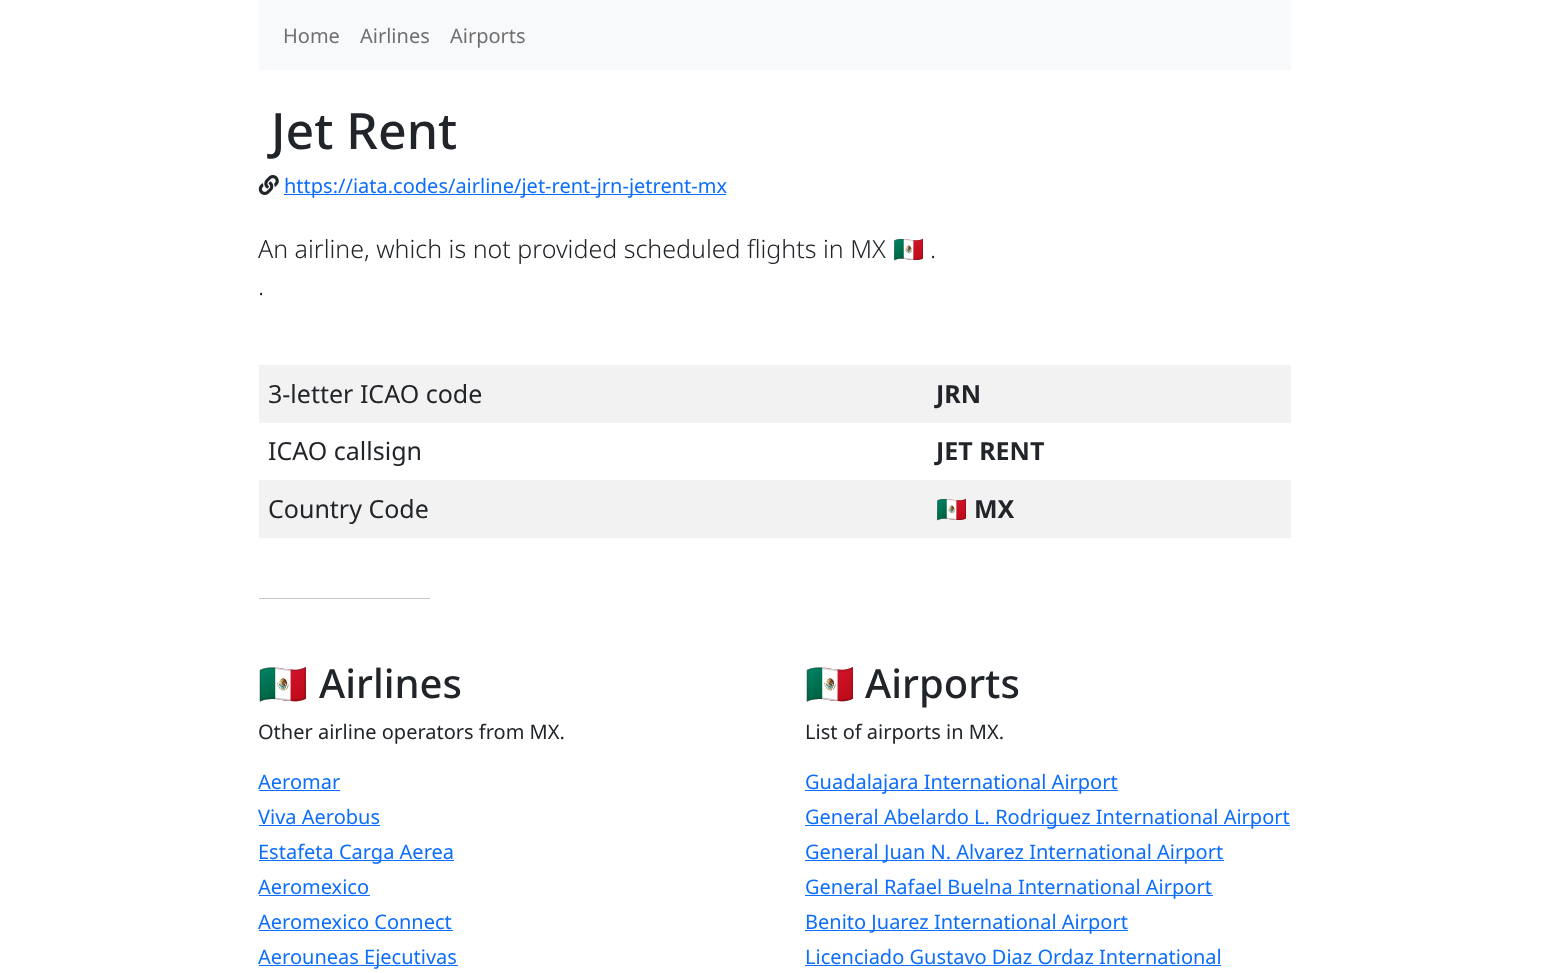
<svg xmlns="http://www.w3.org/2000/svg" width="1550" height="973">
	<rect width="100%" height="100%" fill="#FFFFFF" />
	<rect x="259" y="0" width="1032" height="70" fill="#F8F9FA" />
	<g font-family="Noto Sans" font-size="20" fill="#707071">
		<text x="283" y="43">Home</text>
		<text x="360" y="43">Airlines</text>
		<text x="450" y="43">Airports</text>
	</g>
	<text x="271" y="149" font-family="Noto Sans" font-size="50" font-weight="500" fill="#212529">Jet Rent</text>
	<image x="258" y="175" width="21" height="20" href="assets/img1.png" />
	<rect x="284" y="194" width="442" height="1" fill="#0D6EFD" />
	<text x="284" y="193" font-family="Noto Sans" font-size="20" fill="#0D6EFD">https://iata.codes/airline/jet-rent-jrn-jetrent-mx</text>
	<text x="258" y="258" font-family="Noto Sans" font-size="25" font-weight="300" fill="#212529">An airline, which is not provided scheduled flights in MX</text>
	<text x="893" y="258" font-family="Noto Color Emoji" font-size="25" fill="#212529">🇲🇽</text>
	<g font-family="Noto Sans" font-size="25" font-weight="300" fill="#212529">
		<text x="930" y="258">.</text>
		<text x="258" y="295">.</text>
	</g>
	<rect x="259" y="365" width="1032" height="58" fill="#F2F2F2" />
	<text x="268" y="403" font-family="Noto Sans" font-size="25" fill="#212529">3-letter ICAO code</text>
	<text x="936" y="403" font-family="Noto Sans" font-size="25" font-weight="700" fill="#212529">JRN</text>
	<text x="268" y="460" font-family="Noto Sans" font-size="25" fill="#212529">ICAO callsign</text>
	<text x="936" y="460" font-family="Noto Sans" font-size="25" font-weight="700" fill="#212529">JET RENT</text>
	<rect x="259" y="480" width="1032" height="58" fill="#F2F2F2" />
	<text x="268" y="518" font-family="Noto Sans" font-size="25" fill="#212529">Country Code</text>
	<text x="936" y="518" font-family="Noto Color Emoji" font-size="25" fill="#212529">🇲🇽</text>
	<text x="974" y="518" font-family="Noto Sans" font-size="25" font-weight="700" fill="#212529">MX</text>
	<rect x="259" y="598" width="171" height="1" fill="#C8C9CA" />
	<text x="258" y="698" font-family="Noto Color Emoji" font-size="40" fill="#212529">🇲🇽</text>
	<text x="319" y="698" font-family="Noto Sans" font-size="40" font-weight="500" fill="#212529">Airlines</text>
	<text x="258" y="739" font-family="Noto Sans" font-size="20" fill="#212529">Other airline operators from MX.</text>
	<text x="258" y="789" font-family="Noto Sans" font-size="20" fill="#0D6EFD">Aeromar</text>
	<rect x="259" y="790" width="81" height="1" fill="#0D6EFD" />
	<text x="258" y="824" font-family="Noto Sans" font-size="20" fill="#0D6EFD">Viva Aerobus</text>
	<rect x="259" y="825" width="121" height="1" fill="#0D6EFD" />
	<rect x="259" y="860" width="195" height="1" fill="#0D6EFD" />
	<g font-family="Noto Sans" font-size="20" fill="#0D6EFD">
		<text x="258" y="859">Estafeta Carga Aerea</text>
		<text x="258" y="894">Aeromexico</text>
	</g>
	<rect x="259" y="895" width="111" height="1" fill="#0D6EFD" />
	<text x="258" y="929" font-family="Noto Sans" font-size="20" fill="#0D6EFD">Aeromexico Connect</text>
	<rect x="259" y="930" width="194" height="1" fill="#0D6EFD" />
	<rect x="259" y="965" width="199" height="1" fill="#0D6EFD" />
	<text x="258" y="964" font-family="Noto Sans" font-size="20" fill="#0D6EFD">Aerouneas Ejecutivas</text>
	<text x="805" y="698" font-family="Noto Color Emoji" font-size="40" fill="#212529">🇲🇽</text>
	<text x="865" y="698" font-family="Noto Sans" font-size="40" font-weight="500" fill="#212529">Airports</text>
	<text x="805" y="739" font-family="Noto Sans" font-size="20" fill="#212529">List of airports in MX.</text>
	<rect x="805" y="790" width="313" height="1" fill="#0D6EFD" />
	<text x="805" y="789" font-family="Noto Sans" font-size="20" fill="#0D6EFD">Guadalajara International Airport</text>
	<rect x="805" y="825" width="485" height="1" fill="#0D6EFD" />
	<text x="805" y="824" font-family="Noto Sans" font-size="20" fill="#0D6EFD">General Abelardo L. Rodriguez International Airport</text>
	<rect x="805" y="860" width="419" height="1" fill="#0D6EFD" />
	<text x="805" y="859" font-family="Noto Sans" font-size="20" fill="#0D6EFD">General Juan N. Alvarez International Airport</text>
	<rect x="805" y="895" width="408" height="1" fill="#0D6EFD" />
	<text x="805" y="894" font-family="Noto Sans" font-size="20" fill="#0D6EFD">General Rafael Buelna International Airport</text>
	<rect x="805" y="930" width="323" height="1" fill="#0D6EFD" />
	<g font-family="Noto Sans" font-size="20" fill="#0D6EFD">
		<text x="805" y="929">Benito Juarez International Airport</text>
		<text x="805" y="964">Licenciado Gustavo Diaz Ordaz International</text>
	</g>
	<rect x="805" y="965" width="416" height="1" fill="#0D6EFD" />
</svg>
